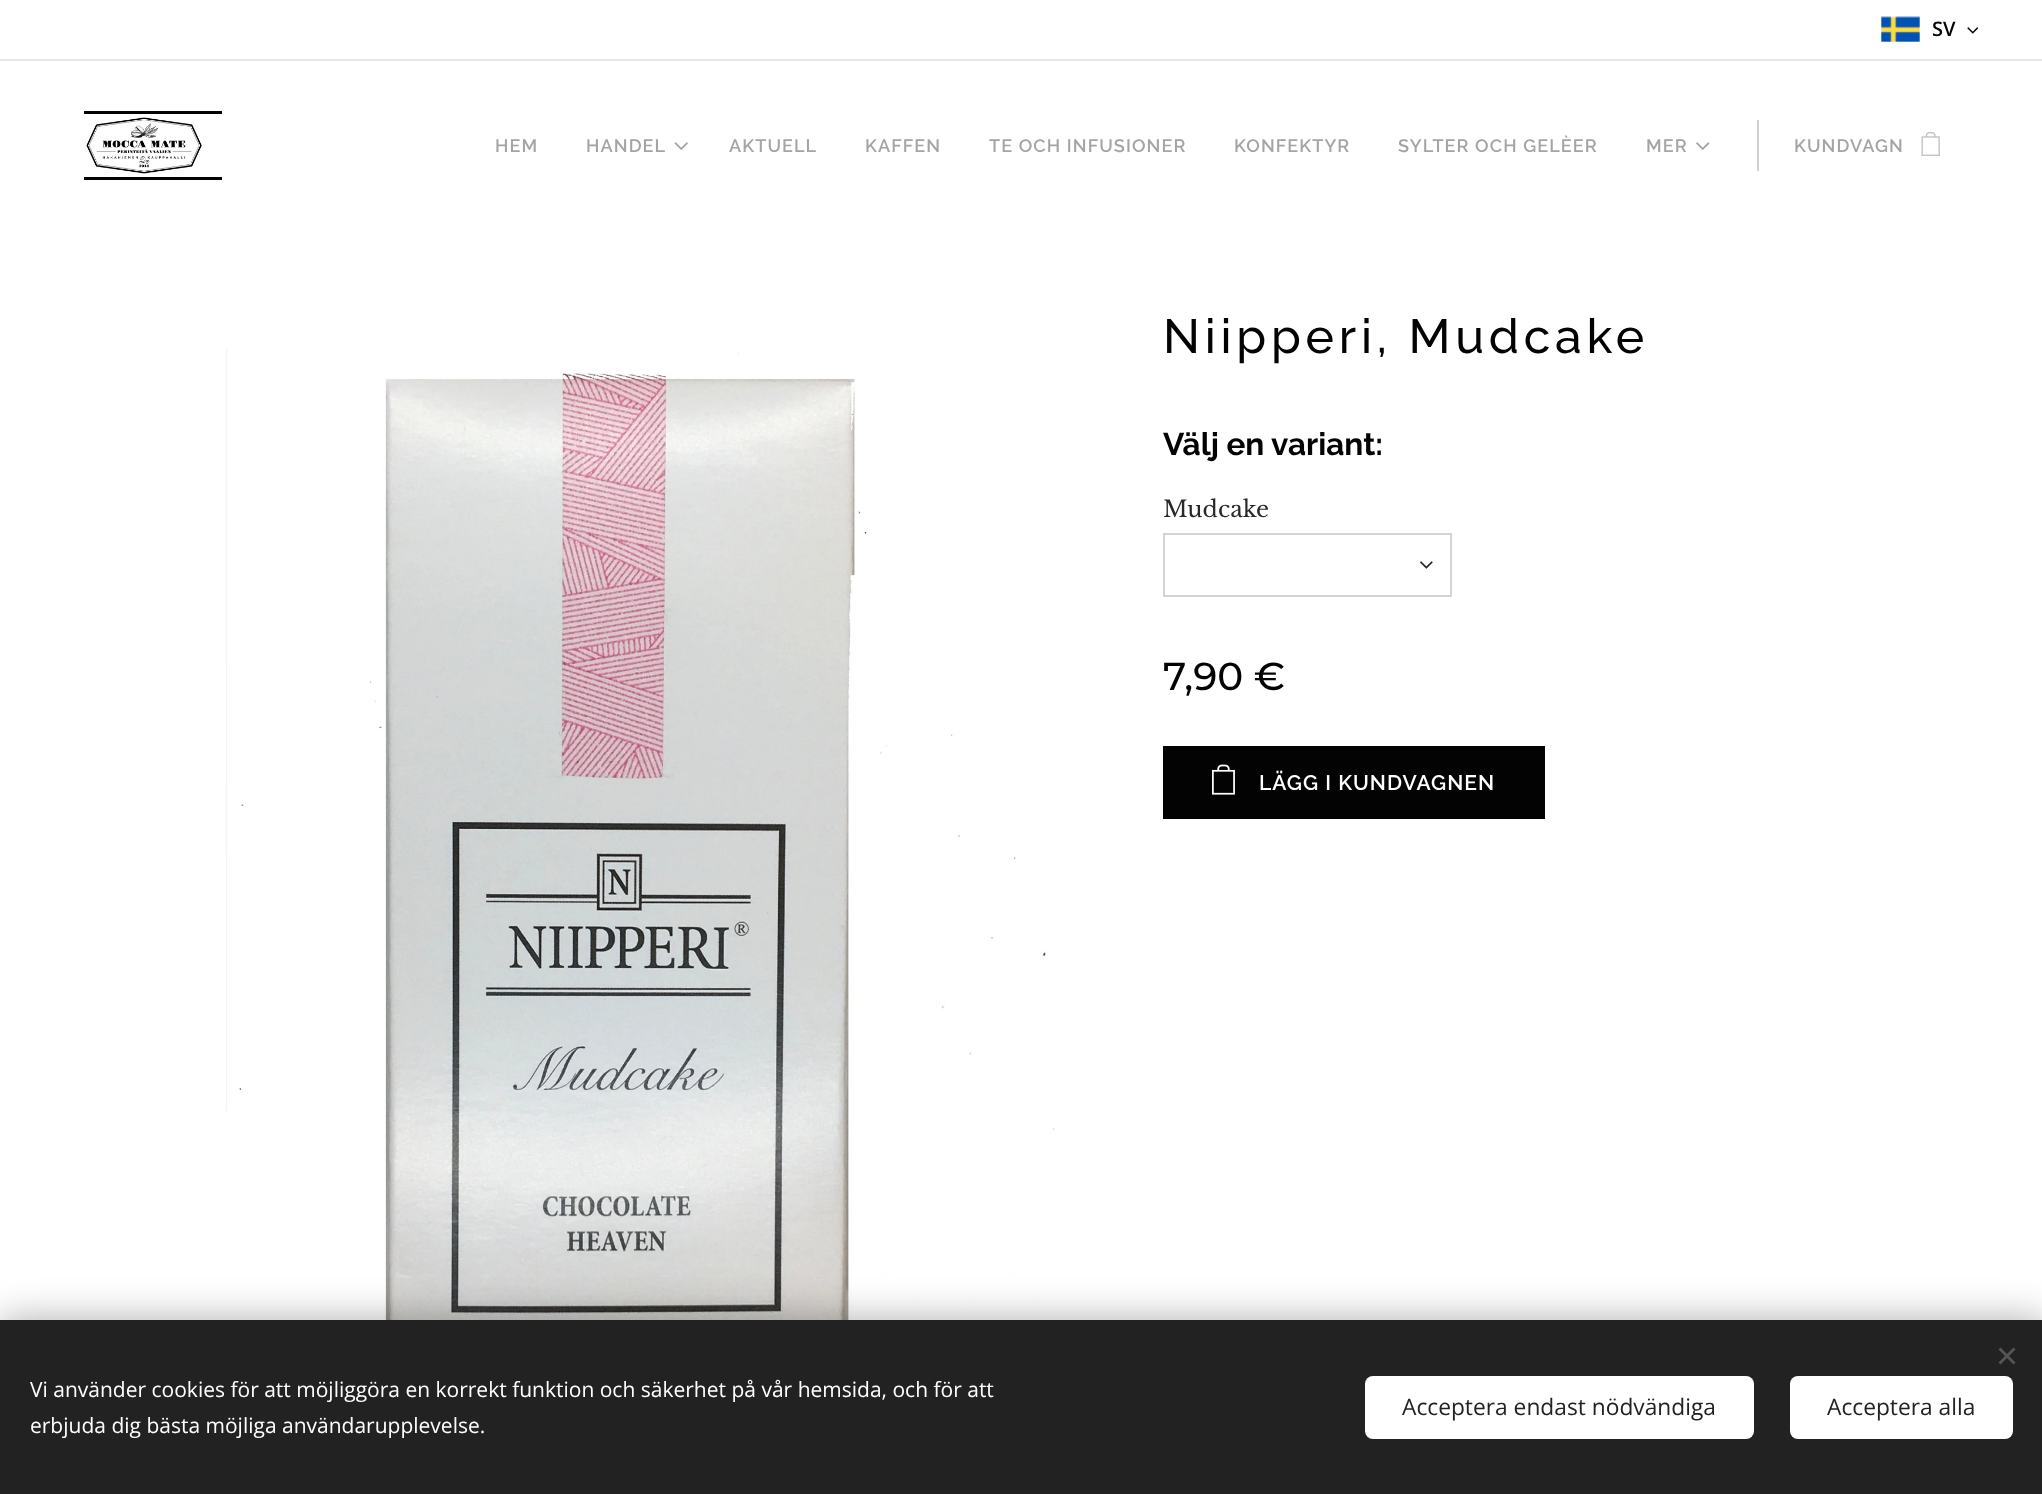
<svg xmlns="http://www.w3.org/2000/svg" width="2042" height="1494">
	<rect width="100%" height="100%" fill="#FFFFFF" />
	<image x="1881" y="16" width="39" height="26" href="assets/img1.png" />
	<text x="1932" y="36" font-family="Open Sans" font-size="20" font-weight="600" fill="#030303">SV</text>
	<image x="1967" y="27" width="12" height="7" href="assets/img2.png" />
	<rect x="0" y="59" width="2042" height="2" fill="#E8E8E8" />
	<rect x="84" y="111" width="138" height="3" fill="#030303" />
	<rect x="84" y="177" width="138" height="3" fill="#030303" />
	<image x="86" y="117" width="116" height="57" href="assets/img3.png" />
	<g font-family="Raleway" font-size="18" font-weight="600" letter-spacing="1.1" fill="#A4A4A4">
		<text x="495" y="152">HEM</text>
		<text x="586" y="152">HANDEL</text>
	</g>
	<image x="674" y="142" width="14" height="8" href="assets/img4.png" />
	<g font-family="Raleway" font-size="18" font-weight="600" letter-spacing="1.1" fill="#A4A4A4">
		<text x="729" y="152">AKTUELL</text>
		<text x="865" y="152">KAFFEN</text>
		<text x="989" y="152">TE OCH INFUSIONER</text>
		<text x="1234" y="152">KONFEKTYR</text>
		<text x="1398" y="152">SYLTER OCH GELÈER</text>
		<text x="1646" y="152">MER</text>
	</g>
	<image x="1696" y="142" width="14" height="8" href="assets/img5.png" />
	<rect x="1757" y="120" width="2" height="51" fill="#D1D1D1" />
	<text x="1794" y="152" font-family="Raleway" font-size="18" font-weight="600" letter-spacing="1.1" fill="#A4A4A4">KUNDVAGN</text>
	<image x="1921" y="132" width="19" height="24" href="assets/img6.png" />
	<text x="1163" y="353" font-family="Raleway" font-size="48" font-weight="500" letter-spacing="4.75" fill="#030303">Niipperi, Mudcake</text>
	<image x="226" y="347" width="834" height="973" href="assets/img7.png" />
	<text x="1163" y="455" font-family="Raleway" font-size="31.5" font-weight="700" fill="#030303">Välj en variant:</text>
	<text x="1163" y="517" font-family="Libre Baskerville" font-size="22.75" fill="#282828">Mudcake</text>
	<rect x="1164" y="534" width="287" height="62" fill="none" stroke="#D4D4D4" stroke-width="2" />
	<image x="1420" y="561" width="13" height="8" href="assets/img8.png" />
	<text x="1163" y="690" font-family="Montserrat" font-size="39" font-weight="500" fill="#030303">7,90 €</text>
	<rect x="1163" y="746" width="382" height="73" fill="#030303" />
	<image x="1212" y="764" width="23" height="31" href="assets/img9.png" />
	<text x="1259" y="790" font-family="Raleway" font-size="21" font-weight="600" letter-spacing="1" fill="#FFFFFF">LÄGG I KUNDVAGNEN</text>
	<rect x="0" y="1320" width="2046" height="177" fill="#000000" fill-opacity="0.33" filter="blur(19px)" />
	<rect x="0" y="1320" width="2042" height="174" fill="#222222" />
	<path d="M1998.5 1362.5L2013.5 1347.5L2015.5 1349.5L2000.5 1364.5Z" fill="#555555" />
	<path d="M2000.5 1347.5L2015.5 1362.5L2013.5 1364.5L1998.5 1349.5Z" fill="#555555" />
	<g font-family="Open Sans" font-size="21" fill="#FFFFFF">
		<text x="30" y="1397">Vi använder cookies för att möjliggöra en korrekt funktion och säkerhet på vår hemsida, och för att</text>
		<text x="30" y="1433">erbjuda dig bästa möjliga användarupplevelse.</text>
	</g>
	<rect x="1365" y="1376" width="389" height="63" rx="8" fill="#FFFFFF" />
	<text x="1402" y="1415" font-family="Open Sans" font-size="22.75" fill="#222222">Acceptera endast nödvändiga</text>
	<rect x="1790" y="1376" width="223" height="63" rx="8" fill="#FFFFFF" />
	<text x="1827" y="1415" font-family="Open Sans" font-size="22.75" fill="#222222">Acceptera alla</text>
</svg>
